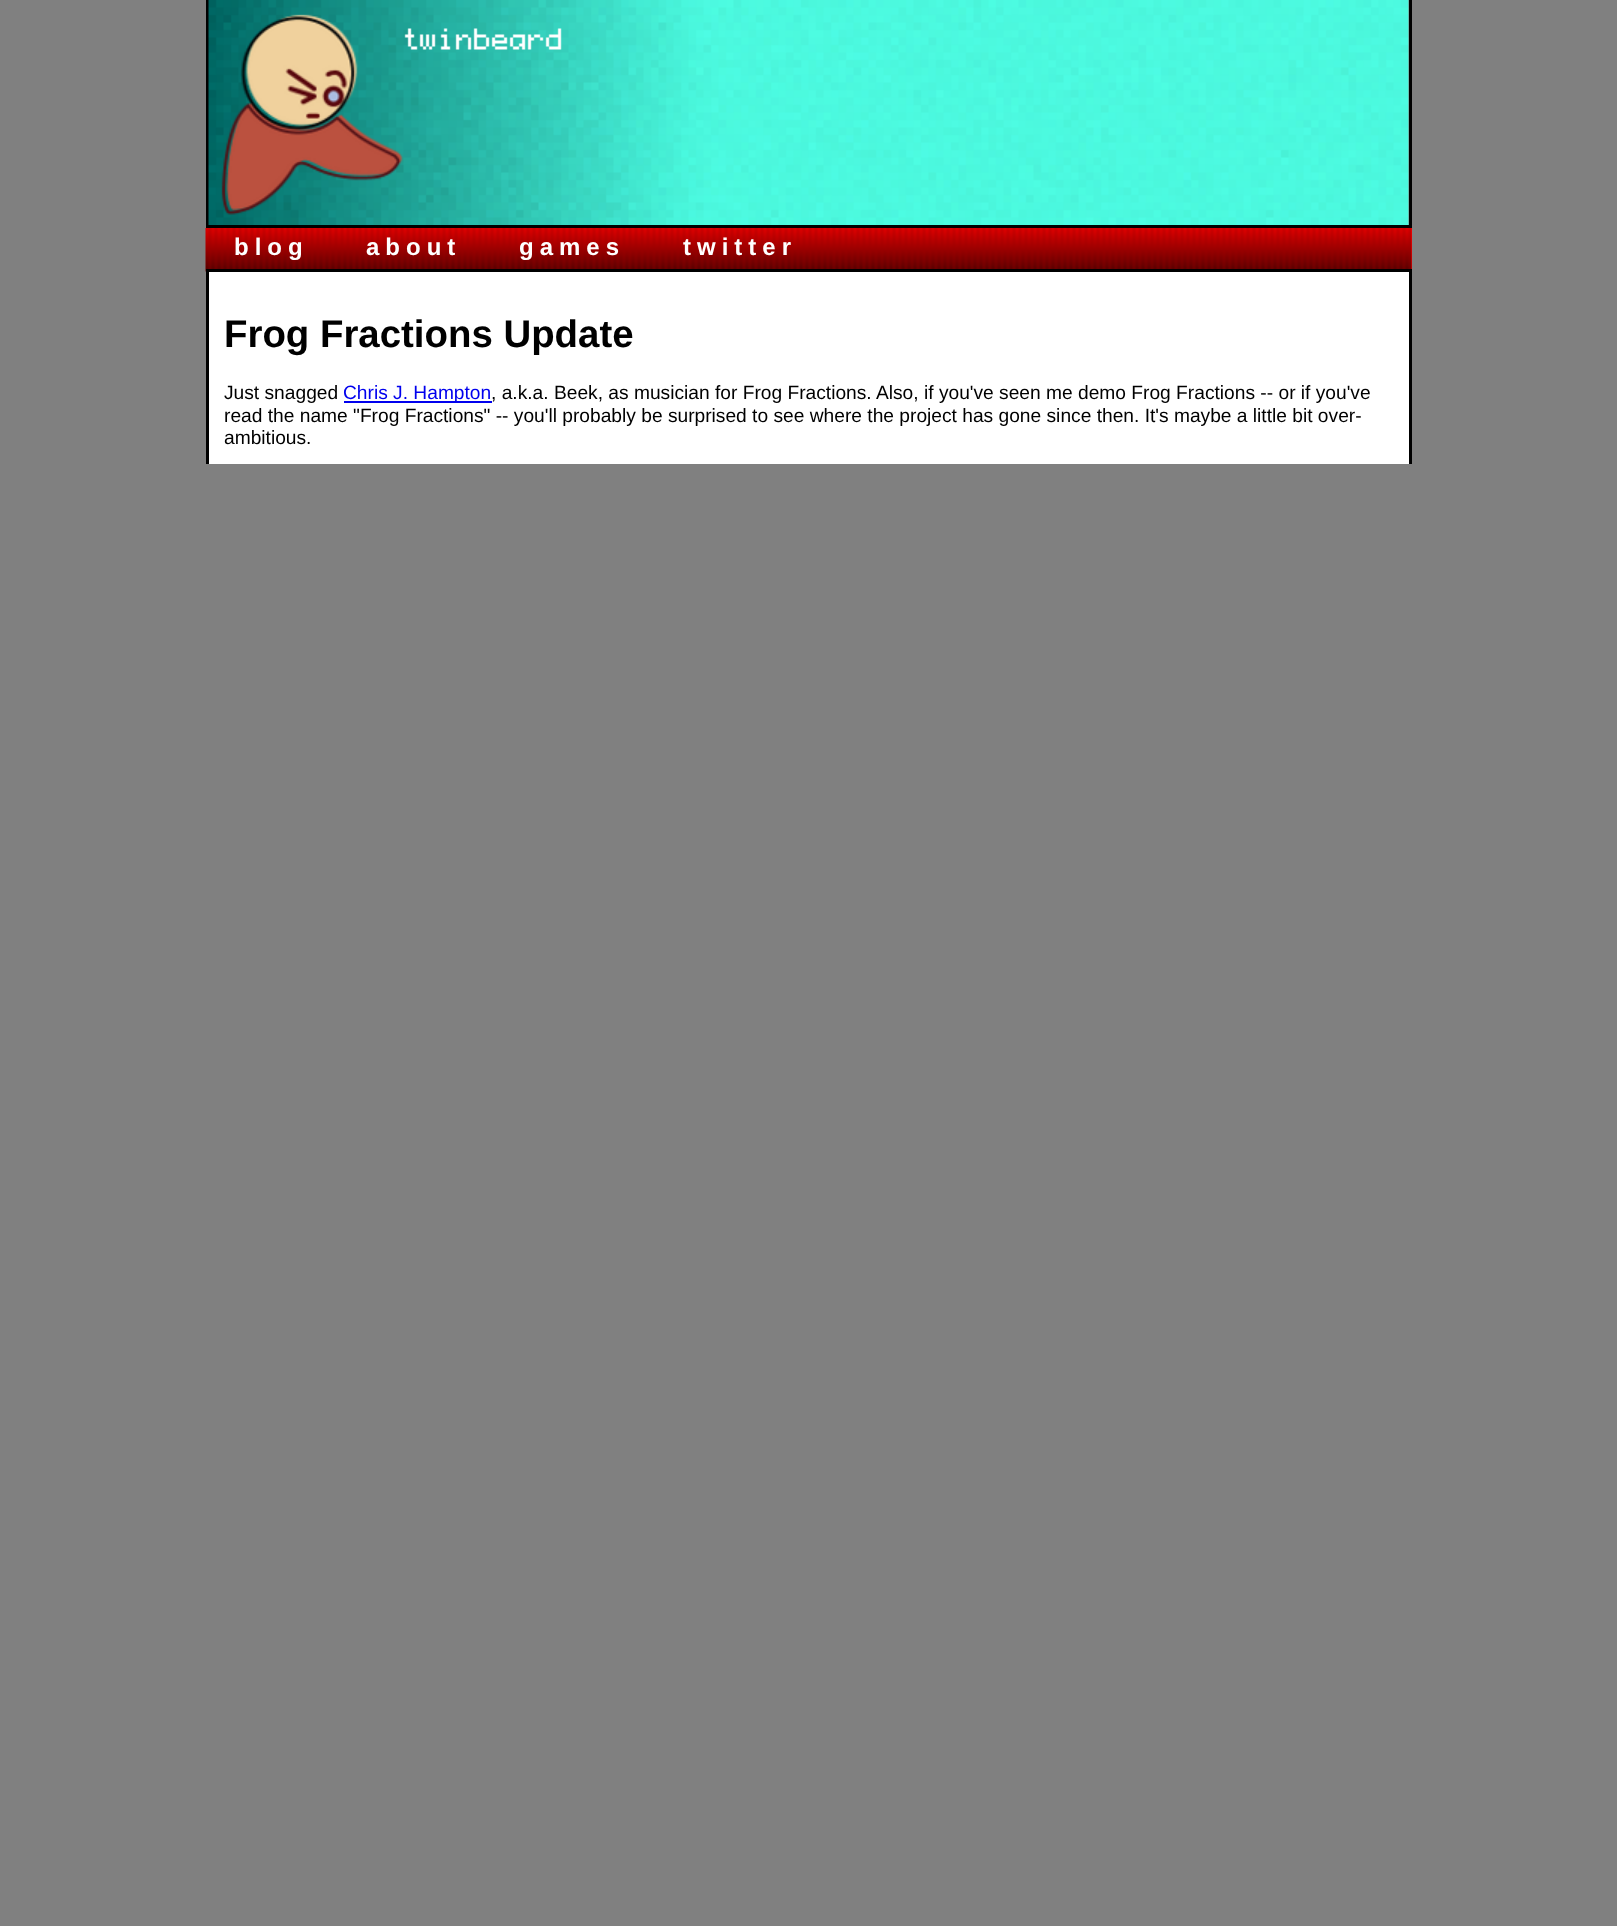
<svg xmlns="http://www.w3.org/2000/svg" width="1617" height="1926">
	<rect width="100%" height="100%" fill="#808080" />
	<rect x="1409" y="0" width="3" height="228" fill="#000000" />
	<rect x="206" y="225" width="1206" height="3" fill="#000000" />
	<rect x="206" y="0" width="3" height="228" fill="#000000" />
	<image x="208" y="0" width="1201" height="225" href="assets/img1.png" />
	<rect x="1411" y="228" width="1" height="41" fill="#FF0000" />
	<image x="205" y="228" width="1207" height="44" href="assets/img2.png" />
	<rect x="206" y="269" width="1206" height="3" fill="#000000" />
	<g font-family="Liberation Sans" font-size="24" font-weight="700" letter-spacing="6" fill="#FFFFFF">
		<text x="234" y="255">blog</text>
		<text x="366" y="255">about</text>
		<text x="519" y="255">games</text>
		<text x="683" y="255">twitter</text>
	</g>
	<rect x="209" y="272" width="1200" height="192" fill="#FFFFFF" />
	<rect x="1409" y="272" width="3" height="192" fill="#000000" />
	<rect x="206" y="272" width="3" height="192" fill="#000000" />
	<text x="224" y="347" font-family="Liberation Sans" font-size="38.4" font-weight="700" fill="#000000">Frog Fractions Update</text>
	<text x="224" y="399" font-family="Liberation Sans" font-size="19.2" fill="#000000">Just snagged</text>
	<rect x="344" y="401" width="148" height="2" fill="#0000EE" />
	<text x="343" y="399" font-family="Liberation Sans" font-size="19.2" fill="#0000EE">Chris J. Hampton</text>
	<g font-family="Liberation Sans" font-size="19.2" fill="#000000">
		<text x="491" y="399">, a.k.a. Beek, as musician for Frog Fractions. Also, if you've seen me demo Frog Fractions -- or if you've</text>
		<text x="224" y="422">read the name "Frog Fractions" -- you'll probably be surprised to see where the project has gone since then. It's maybe a little bit over-</text>
		<text x="224" y="444">ambitious.</text>
	</g>
</svg>
